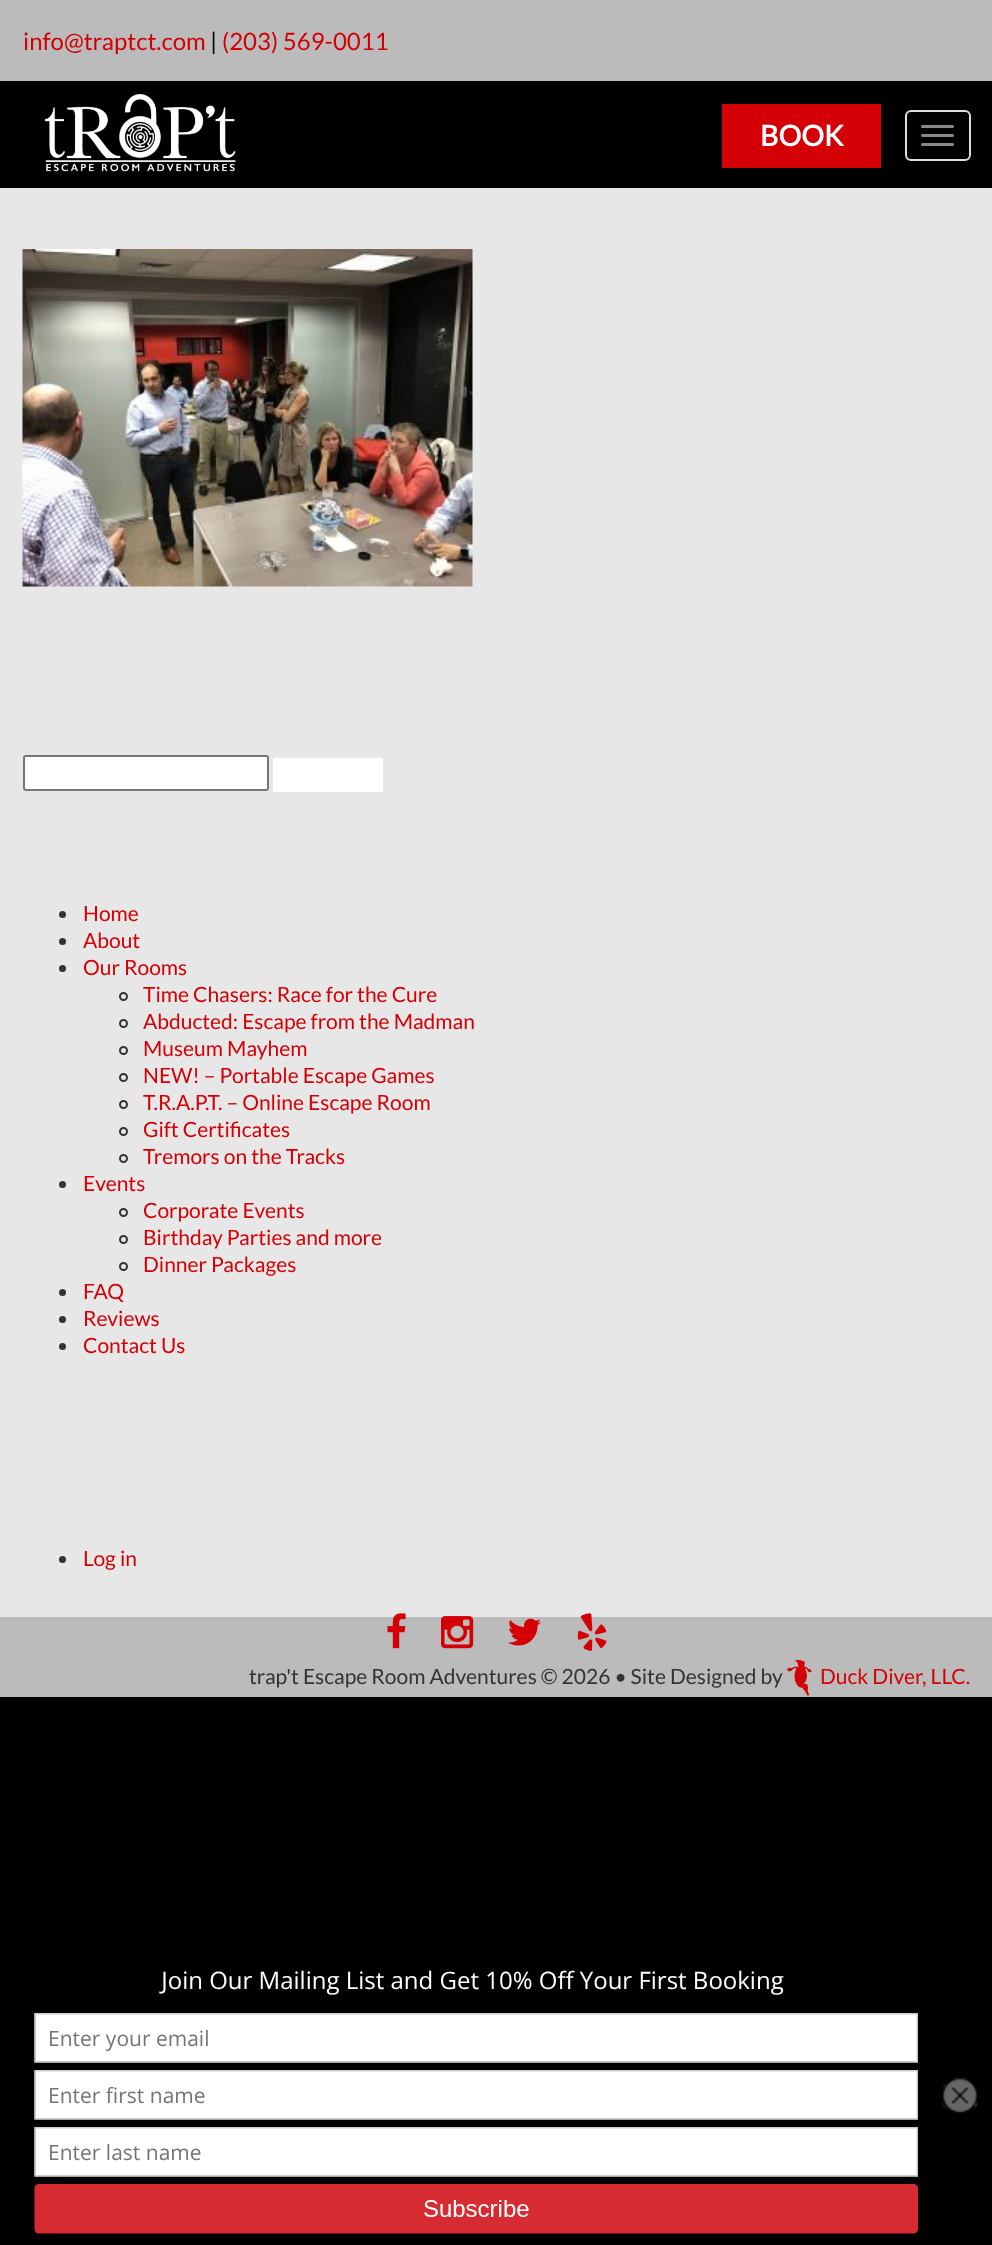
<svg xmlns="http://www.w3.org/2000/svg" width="992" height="2245">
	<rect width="100%" height="100%" fill="#000000" />
	<rect x="0" y="0" width="992" height="81" fill="#BBBBBB" />
	<text x="23" y="50" font-family="Lato" font-size="24" fill="#D40005">info@traptct.com</text>
	<text x="210" y="50" font-family="Lato" font-size="24" fill="#000000">|</text>
	<text x="222" y="50" font-family="Lato" font-size="24" fill="#D40005">(203) 569-0011</text>
	<image x="44" y="94" width="192" height="78" href="assets/img1.png" />
	<rect x="722" y="104" width="159" height="64" fill="#D40005" />
	<text x="760" y="146" font-family="Lato" font-size="28.5" font-weight="700" fill="#FFFFFF">BOOK</text>
	<rect x="906" y="111" width="64" height="49" rx="5" fill="none" stroke="#DDDDDD" stroke-width="2" />
	<rect x="921" y="125" width="33" height="3" rx="1.5" fill="#888888" />
	<rect x="921" y="134" width="33" height="3" rx="1.5" fill="#888888" />
	<rect x="921" y="143" width="33" height="3" rx="1.5" fill="#888888" />
	<rect x="0" y="188" width="992" height="1429" fill="#E7E7E7" />
	<image x="22" y="249" width="451" height="338" href="assets/img2.png" />
	<rect x="24" y="756" width="244" height="34" rx="2" fill="#FFFFFF" stroke="#767676" stroke-width="2" />
	<rect x="273" y="758" width="110" height="34" fill="#FFFFFF" />
	<circle cx="62.5" cy="914.5" r="3.5" fill="#333333" />
	<text x="83" y="921" font-family="Lato" font-size="21" fill="#D40005">Home</text>
	<circle cx="62.5" cy="941.5" r="3.5" fill="#333333" />
	<text x="83" y="948" font-family="Lato" font-size="21" fill="#D40005">About</text>
	<circle cx="62.5" cy="968.5" r="3.5" fill="#333333" />
	<text x="83" y="975" font-family="Lato" font-size="21" fill="#D40005">Our Rooms</text>
	<circle cx="123.5" cy="996.5" r="3.5" fill="none" stroke="#333333" stroke-width="2" />
	<text x="143" y="1002" font-family="Lato" font-size="21" fill="#D40005">Time Chasers: Race for the Cure</text>
	<circle cx="123.5" cy="1023.5" r="3.5" fill="none" stroke="#333333" stroke-width="2" />
	<text x="143" y="1029" font-family="Lato" font-size="21" fill="#D40005">Abducted: Escape from the Madman</text>
	<circle cx="123.5" cy="1050.5" r="3.5" fill="none" stroke="#333333" stroke-width="2" />
	<text x="143" y="1056" font-family="Lato" font-size="21" fill="#D40005">Museum Mayhem</text>
	<circle cx="123.5" cy="1077.5" r="3.5" fill="none" stroke="#333333" stroke-width="2" />
	<text x="143" y="1083" font-family="Lato" font-size="21" fill="#D40005">NEW! – Portable Escape Games</text>
	<circle cx="123.5" cy="1104.5" r="3.5" fill="none" stroke="#333333" stroke-width="2" />
	<text x="143" y="1110" font-family="Lato" font-size="21" fill="#D40005">T.R.A.P.T. – Online Escape Room</text>
	<circle cx="123.5" cy="1131.5" r="3.5" fill="none" stroke="#333333" stroke-width="2" />
	<text x="143" y="1137" font-family="Lato" font-size="21" fill="#D40005">Gift Certificates</text>
	<circle cx="123.5" cy="1158.5" r="3.5" fill="none" stroke="#333333" stroke-width="2" />
	<text x="143" y="1164" font-family="Lato" font-size="21" fill="#D40005">Tremors on the Tracks</text>
	<circle cx="62.5" cy="1184.5" r="3.5" fill="#333333" />
	<text x="83" y="1191" font-family="Lato" font-size="21" fill="#D40005">Events</text>
	<circle cx="123.5" cy="1212.5" r="3.5" fill="none" stroke="#333333" stroke-width="2" />
	<text x="143" y="1218" font-family="Lato" font-size="21" fill="#D40005">Corporate Events</text>
	<circle cx="123.5" cy="1239.5" r="3.5" fill="none" stroke="#333333" stroke-width="2" />
	<text x="143" y="1245" font-family="Lato" font-size="21" fill="#D40005">Birthday Parties and more</text>
	<circle cx="123.5" cy="1266.5" r="3.5" fill="none" stroke="#333333" stroke-width="2" />
	<text x="143" y="1272" font-family="Lato" font-size="21" fill="#D40005">Dinner Packages</text>
	<circle cx="62.5" cy="1292.5" r="3.5" fill="#333333" />
	<text x="83" y="1299" font-family="Lato" font-size="21" fill="#D40005">FAQ</text>
	<circle cx="62.5" cy="1319.5" r="3.5" fill="#333333" />
	<text x="83" y="1326" font-family="Lato" font-size="21" fill="#D40005">Reviews</text>
	<circle cx="62.5" cy="1346.5" r="3.5" fill="#333333" />
	<text x="83" y="1353" font-family="Lato" font-size="21" fill="#D40005">Contact Us</text>
	<circle cx="62.5" cy="1559.5" r="3.5" fill="#333333" />
	<text x="83" y="1566" font-family="Lato" font-size="21" fill="#D40005">Log in</text>
	<rect x="0" y="1617" width="992" height="80" fill="#BBBBBB" />
	<image x="387" y="1613" width="19" height="36" href="assets/img3.png" />
	<image x="441" y="1616" width="33" height="33" href="assets/img4.png" />
	<image x="508" y="1618" width="33" height="28" href="assets/img5.png" />
	<image x="577" y="1613" width="30" height="38" href="assets/img6.png" />
	<text x="249" y="1684" font-family="Lato" font-size="21" fill="#333333">trap't Escape Room Adventures © 2026 • Site Designed by</text>
	<image x="786" y="1659" width="26" height="37" href="assets/img7.png" />
	<text x="820" y="1684" font-family="Lato" font-size="21" fill="#D40005">Duck Diver, LLC.</text>
	<image x="34" y="1970" width="958" height="264" href="assets/img8.png" />
</svg>
